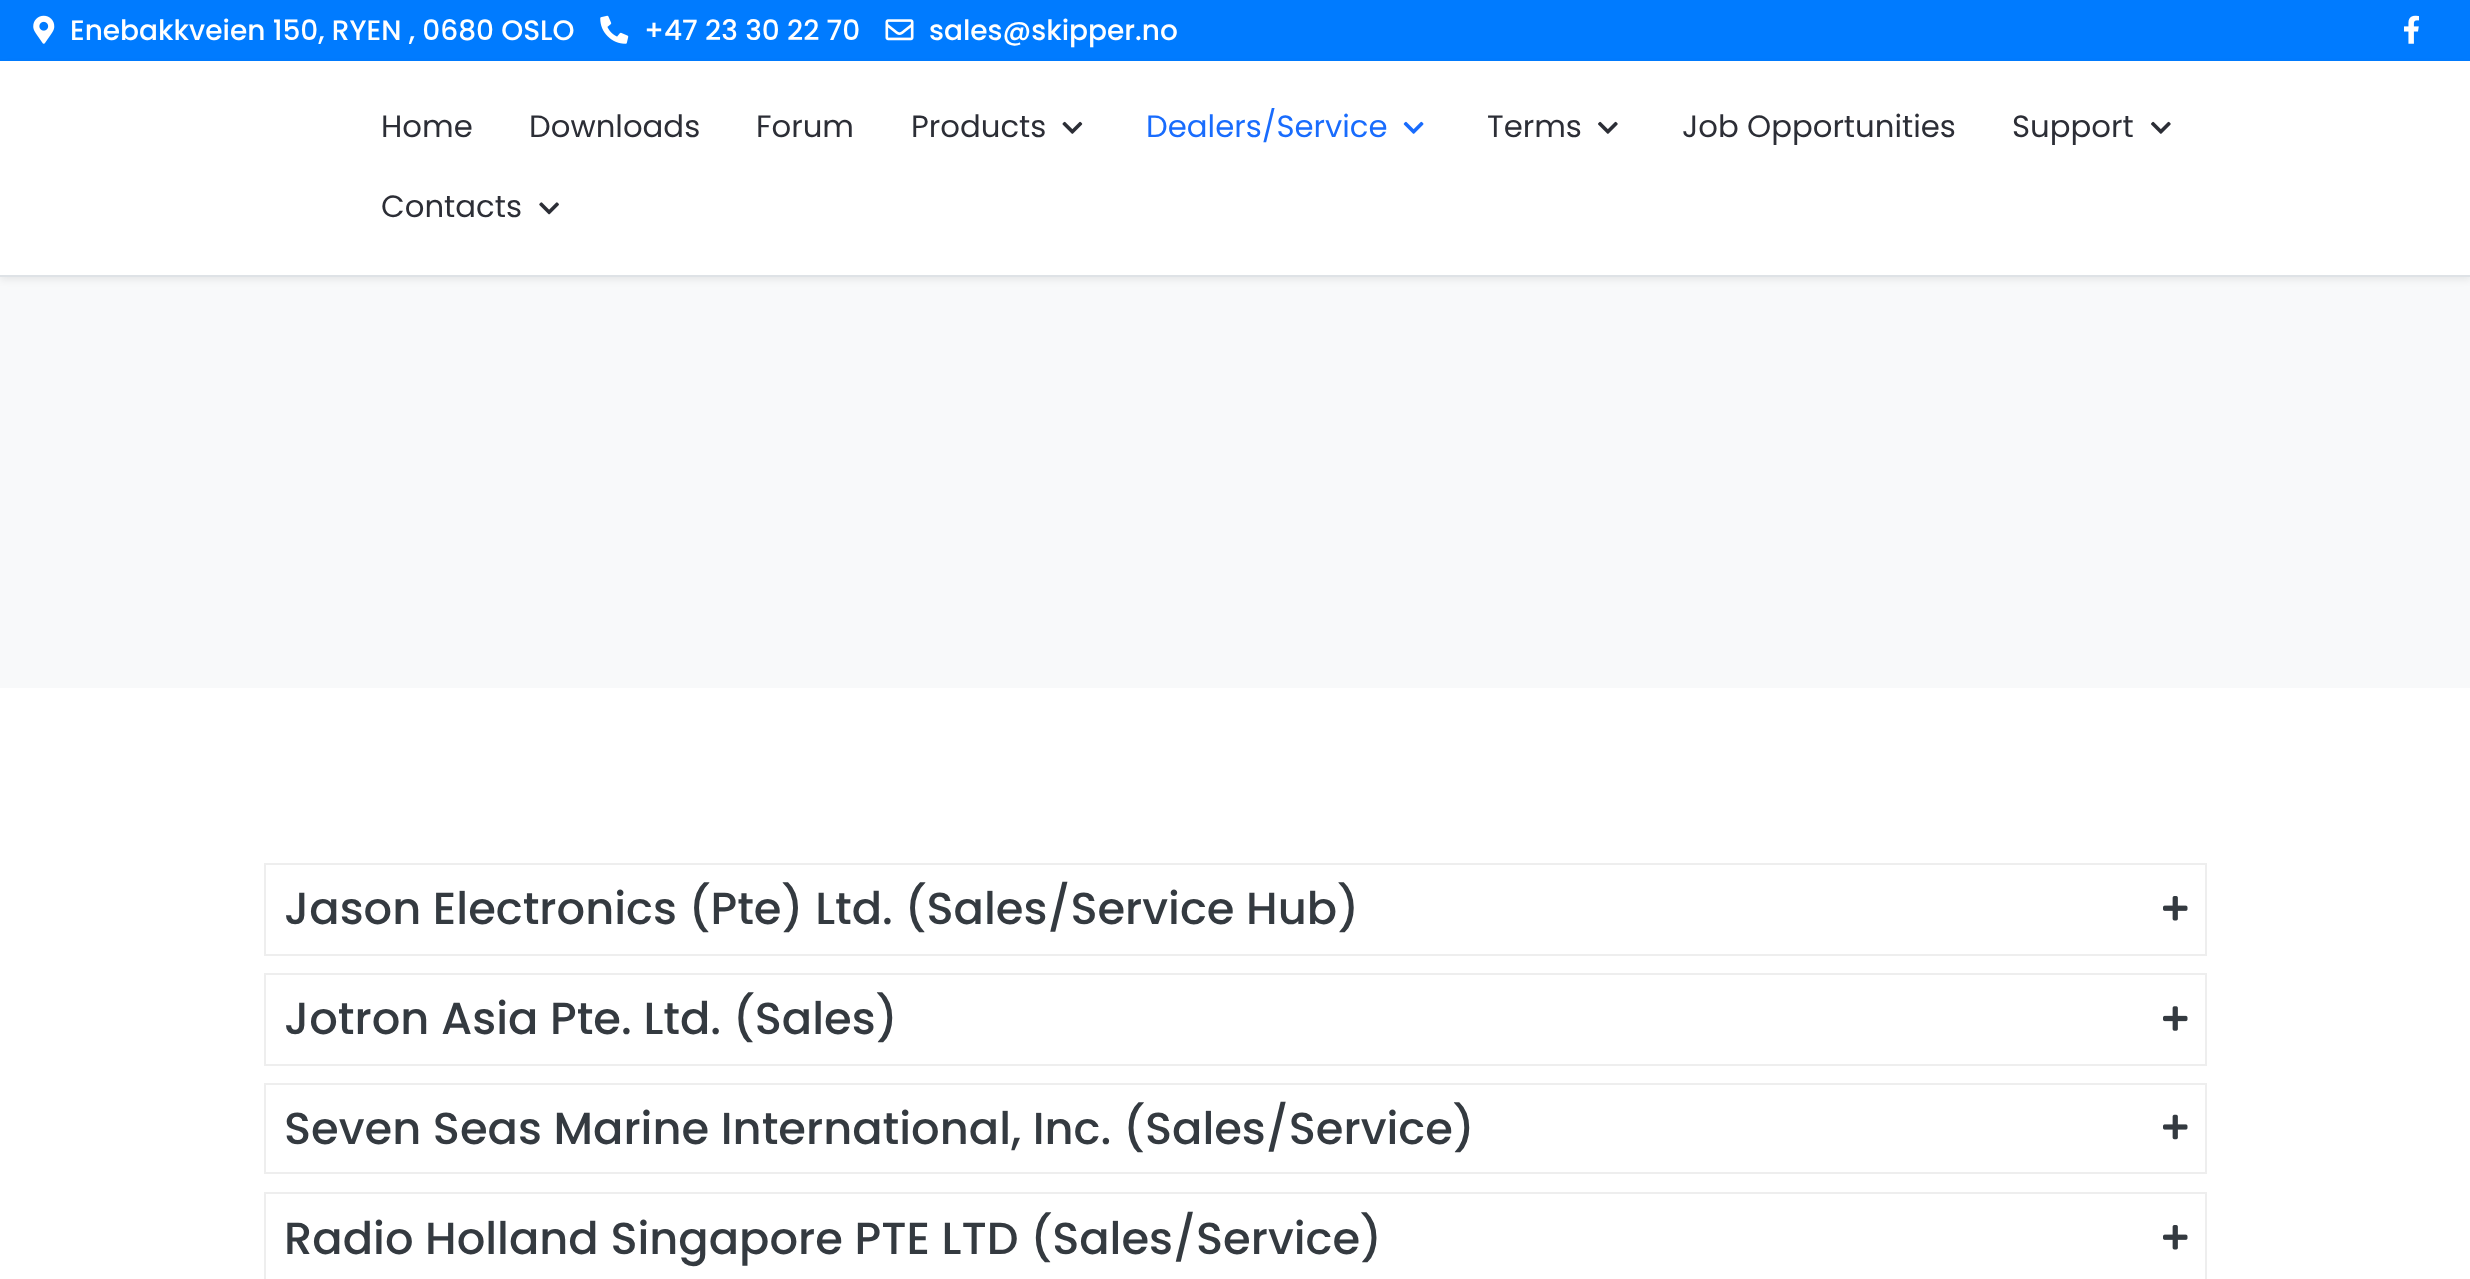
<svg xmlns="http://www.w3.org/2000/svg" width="2470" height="1279">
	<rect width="100%" height="100%" fill="#FFFFFF" />
	<rect x="0" y="0" width="2470" height="61" fill="#007BFF" />
	<image x="33" y="15" width="22" height="29" href="assets/img1.png" />
	<text x="70" y="40" font-family="Poppins" font-size="28" font-weight="500" fill="#FFFFFF">Enebakkveien 150, RYEN , 0680 OSLO</text>
	<image x="600" y="15" width="29" height="29" href="assets/img2.png" />
	<text x="644" y="40" font-family="Poppins" font-size="28" font-weight="500" fill="#FFFFFF">+47 23 30 22 70</text>
	<image x="885" y="19" width="29" height="22" href="assets/img3.png" />
	<text x="929" y="40" font-family="Poppins" font-size="28" font-weight="500" fill="#FFFFFF">sales@skipper.no</text>
	<image x="2404" y="15" width="15" height="29" href="assets/img4.png" />
	<rect x="0" y="277" width="2470" height="411" fill="#F8F9FA" />
	<rect x="0" y="65" width="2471" height="215" fill="#000000" fill-opacity="0.07" filter="blur(3.5px)" />
	<rect x="0" y="61" width="2470" height="214" fill="#FFFFFF" />
	<rect x="0" y="275" width="2470" height="2" fill="#DEE2E6" />
	<g font-family="Poppins" font-size="30.75" fill="#2C2E36">
		<text x="381" y="137">Home</text>
		<text x="529" y="137">Downloads</text>
		<text x="756" y="137">Forum</text>
		<text x="911" y="137">Products</text>
	</g>
	<image x="1062" y="121" width="21" height="13" href="assets/img5.png" />
	<text x="1146" y="137" font-family="Poppins" font-size="30.75" fill="#196CFD">Dealers/Service</text>
	<image x="1403" y="121" width="21" height="13" href="assets/img6.png" />
	<text x="1487" y="137" font-family="Poppins" font-size="30.75" fill="#2C2E36">Terms</text>
	<image x="1598" y="121" width="20" height="13" href="assets/img7.png" />
	<g font-family="Poppins" font-size="30.75" fill="#2C2E36">
		<text x="1682" y="137">Job Opportunities</text>
		<text x="2012" y="137">Support</text>
	</g>
	<image x="2151" y="121" width="20" height="13" href="assets/img7.png" />
	<text x="381" y="217" font-family="Poppins" font-size="30.75" fill="#2C2E36">Contacts</text>
	<image x="539" y="202" width="20" height="13" href="assets/img8.png" />
	<rect x="265" y="864" width="1941" height="91" fill="none" stroke="#EEEEEE" stroke-width="2" />
	<text x="284" y="924" font-family="Poppins" font-size="44.8" font-weight="500" fill="#343A40">Jason Electronics (Pte) Ltd. (Sales/Service Hub)</text>
	<image x="2163" y="896" width="25" height="25" href="assets/img9.png" />
	<rect x="265" y="974" width="1941" height="91" fill="none" stroke="#EEEEEE" stroke-width="2" />
	<text x="284" y="1034" font-family="Poppins" font-size="44.8" font-weight="500" fill="#343A40">Jotron Asia Pte. Ltd. (Sales)</text>
	<image x="2163" y="1006" width="25" height="25" href="assets/img10.png" />
	<rect x="265" y="1084" width="1941" height="89" fill="none" stroke="#EEEEEE" stroke-width="2" />
	<text x="284" y="1144" font-family="Poppins" font-size="44.8" font-weight="500" fill="#343A40">Seven Seas Marine International, Inc. (Sales/Service)</text>
	<image x="2163" y="1114" width="25" height="26" href="assets/img11.png" />
	<rect x="265" y="1193" width="1941" height="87" fill="none" stroke="#EEEEEE" stroke-width="2" />
	<text x="284" y="1254" font-family="Poppins" font-size="44.8" font-weight="500" fill="#343A40">Radio Holland Singapore PTE LTD (Sales/Service)</text>
	<image x="2163" y="1225" width="25" height="25" href="assets/img9.png" />
</svg>
